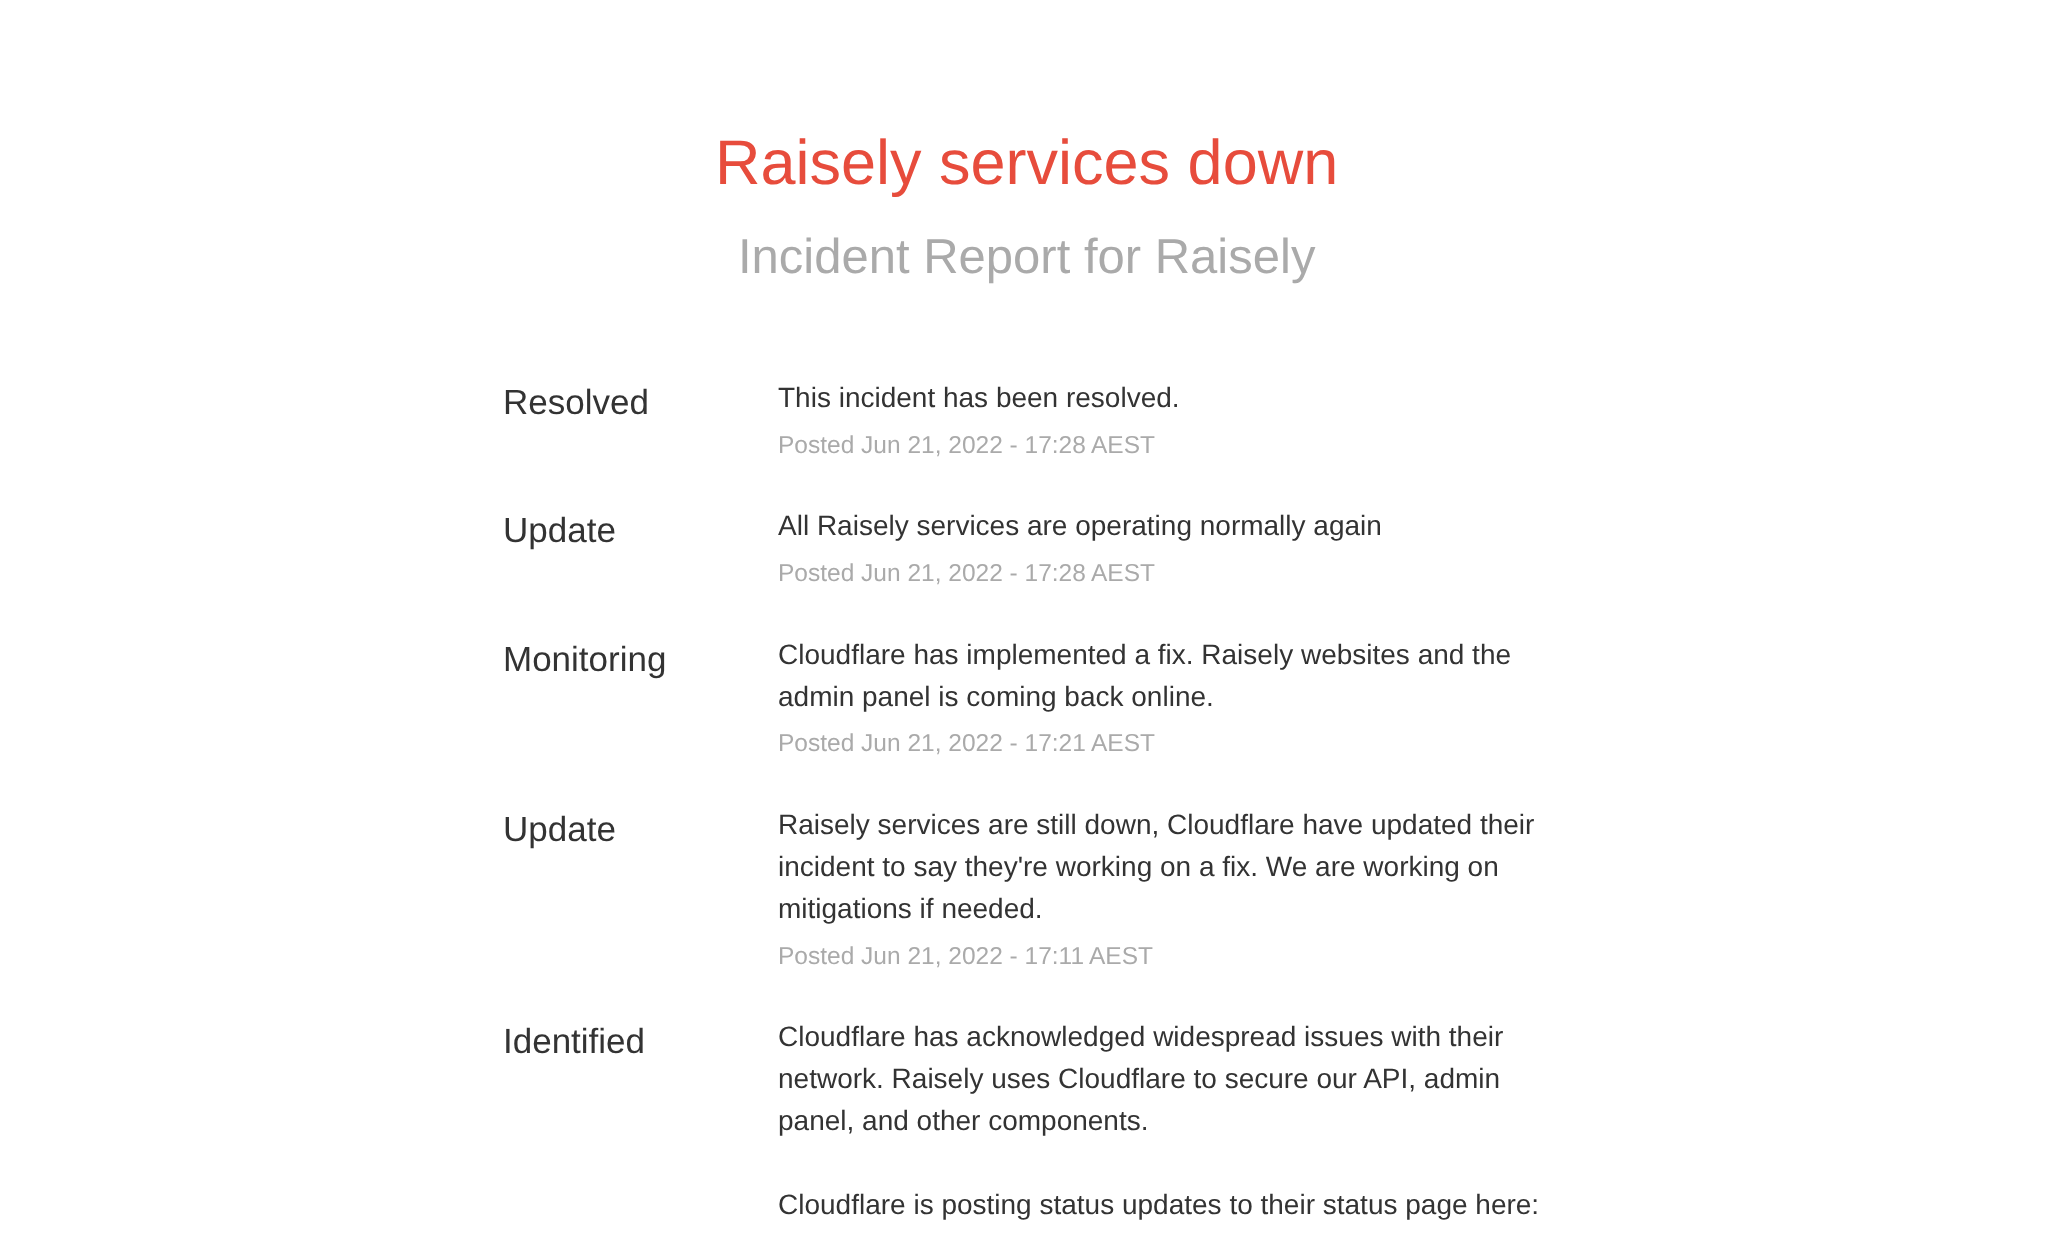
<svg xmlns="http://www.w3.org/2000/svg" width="2052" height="1249">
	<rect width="100%" height="100%" fill="#FFFFFF" />
	<text x="715" y="184" font-family="Liberation Sans" font-size="63" fill="#E74C3C">Raisely services down</text>
	<text x="738" y="273" font-family="Liberation Sans" font-size="49" fill="#AAAAAA">Incident Report for Raisely</text>
	<text x="503" y="414" font-family="Liberation Sans" font-size="35" fill="#333333">Resolved</text>
	<text x="778" y="407" font-family="Liberation Sans" font-size="28" fill="#333333">This incident has been resolved.</text>
	<g font-family="Liberation Sans" font-size="24.5" fill="#AAAAAA">
		<text x="778" y="453">Posted Jun 21, 2022 - 17:28</text>
		<text x="1091" y="453">AEST</text>
	</g>
	<text x="503" y="542" font-family="Liberation Sans" font-size="35" fill="#333333">Update</text>
	<text x="778" y="535" font-family="Liberation Sans" font-size="28" fill="#333333">All Raisely services are operating normally again</text>
	<g font-family="Liberation Sans" font-size="24.5" fill="#AAAAAA">
		<text x="778" y="581">Posted Jun 21, 2022 - 17:28</text>
		<text x="1091" y="581">AEST</text>
	</g>
	<text x="503" y="671" font-family="Liberation Sans" font-size="35" fill="#333333">Monitoring</text>
	<g font-family="Liberation Sans" font-size="28" fill="#333333">
		<text x="778" y="664">Cloudflare has implemented a fix. Raisely websites and the</text>
		<text x="778" y="706">admin panel is coming back online.</text>
	</g>
	<g font-family="Liberation Sans" font-size="24.5" fill="#AAAAAA">
		<text x="778" y="751">Posted Jun 21, 2022 - 17:21</text>
		<text x="1091" y="751">AEST</text>
	</g>
	<text x="503" y="841" font-family="Liberation Sans" font-size="35" fill="#333333">Update</text>
	<g font-family="Liberation Sans" font-size="28" fill="#333333">
		<text x="778" y="834">Raisely services are still down, Cloudflare have updated their</text>
		<text x="778" y="876">incident to say they're working on a fix. We are working on</text>
		<text x="778" y="918">mitigations if needed.</text>
	</g>
	<g font-family="Liberation Sans" font-size="24.5" fill="#AAAAAA">
		<text x="778" y="964">Posted Jun 21, 2022 - 17:11</text>
		<text x="1089" y="964">AEST</text>
	</g>
	<text x="503" y="1053" font-family="Liberation Sans" font-size="35" fill="#333333">Identified</text>
	<g font-family="Liberation Sans" font-size="28" fill="#333333">
		<text x="778" y="1046">Cloudflare has acknowledged widespread issues with their</text>
		<text x="778" y="1088">network. Raisely uses Cloudflare to secure our API, admin</text>
		<text x="778" y="1130">panel, and other components.</text>
		<text x="778" y="1214">Cloudflare is posting status updates to their status page here:</text>
	</g>
</svg>
